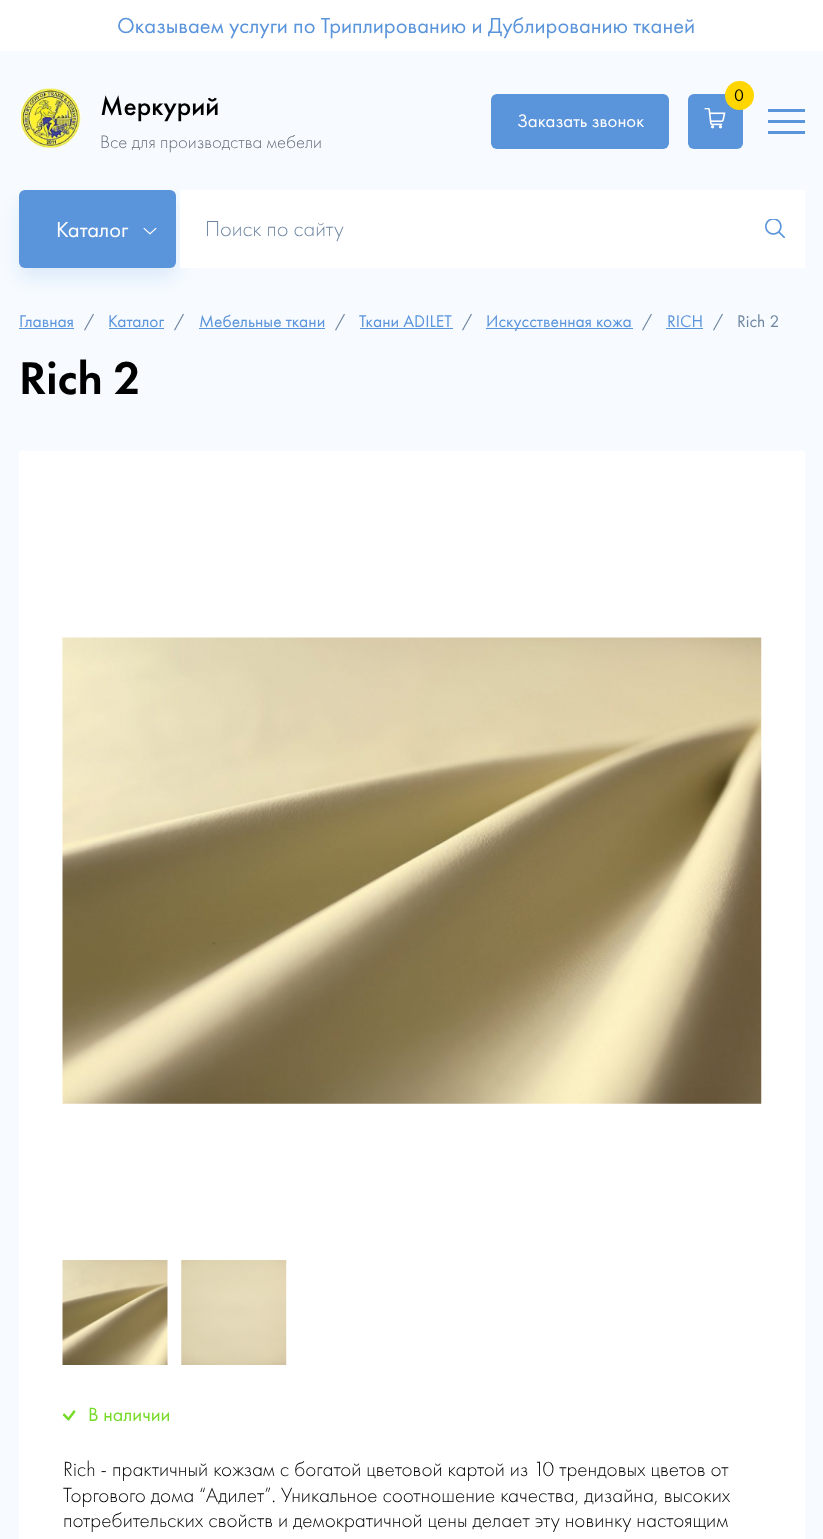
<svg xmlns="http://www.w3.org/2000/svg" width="823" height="1539">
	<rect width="100%" height="100%" fill="#F7FBFF" />
	<rect x="0" y="0" width="823" height="51" fill="#FFFFFF" />
	<text x="117" y="33" font-family="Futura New" font-size="22.5" fill="#5A94DB">Оказываем услуги по Триплированию и Дублированию тканей</text>
	<image x="21" y="88" width="60" height="60" href="assets/img1.png" />
	<text x="100" y="115" font-family="'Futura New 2'" font-size="27.5" font-weight="500" fill="#000000">Меркурий</text>
	<text x="100" y="148" font-family="Futura New" font-size="18.75" font-weight="300" fill="#656D7B">Все для производства мебели</text>
	<rect x="688" y="94" width="55" height="55" rx="6" fill="#5A94DB" />
	<image x="704" y="108" width="22" height="21" href="assets/img2.png" />
	<circle cx="739.5" cy="95.5" r="14.5" fill="#FFD600" />
	<text x="734" y="101" font-family="Futura New" font-size="17.5" fill="#000000">0</text>
	<rect x="491" y="94" width="178" height="55" rx="6" fill="#5A94DB" />
	<text x="517" y="127" font-family="Futura New" font-size="18.75" fill="#FFFFFF">Заказать звонок</text>
	<rect x="768" y="109" width="37" height="3" fill="#5A94DB" />
	<rect x="768" y="120" width="37" height="3" fill="#5A94DB" />
	<rect x="768" y="131" width="37" height="3" fill="#5A94DB" />
	<rect x="19" y="201" width="157" height="78" rx="6" fill="#5A94DB" fill-opacity="0.16" filter="blur(9.5px)" />
	<rect x="19" y="190" width="157" height="78" rx="6" fill="#5A94DB" />
	<text x="56" y="237" font-family="Futura New" font-size="22.5" fill="#FFFFFF">Каталог</text>
	<image x="143" y="228" width="14" height="7" href="assets/img3.png" />
	<rect x="180" y="190" width="625" height="78" fill="#FFFFFF" />
	<text x="205" y="236" font-family="Futura New" font-size="22.5" font-weight="300" fill="#7087A3">Поиск по сайту</text>
	<image x="765" y="219" width="20" height="20" href="assets/img4.png" />
	<text x="19" y="327" font-family="Futura New" font-size="17.5" fill="#5A94DB">Главная</text>
	<rect x="19" y="328" width="55" height="1" fill="#5A94DB" />
	<text x="84" y="327" font-family="Futura New" font-size="17.5" fill="#7087A3">/</text>
	<text x="108" y="327" font-family="Futura New" font-size="17.5" fill="#5A94DB">Каталог</text>
	<rect x="109" y="328" width="55" height="1" fill="#5A94DB" />
	<text x="174" y="327" font-family="Futura New" font-size="17.5" fill="#7087A3">/</text>
	<text x="199" y="327" font-family="Futura New" font-size="17.5" fill="#5A94DB">Мебельные ткани</text>
	<rect x="199" y="328" width="126" height="1" fill="#5A94DB" />
	<text x="335" y="327" font-family="Futura New" font-size="17.5" fill="#7087A3">/</text>
	<text x="359" y="327" font-family="Futura New" font-size="17.5" fill="#5A94DB">Ткани ADILET</text>
	<rect x="360" y="328" width="93" height="1" fill="#5A94DB" />
	<text x="462" y="327" font-family="Futura New" font-size="17.5" fill="#7087A3">/</text>
	<rect x="486" y="328" width="147" height="1" fill="#5A94DB" />
	<text x="486" y="327" font-family="Futura New" font-size="17.5" fill="#5A94DB">Искусственная кожа</text>
	<text x="642" y="327" font-family="Futura New" font-size="17.5" fill="#7087A3">/</text>
	<text x="667" y="327" font-family="Futura New" font-size="17.5" fill="#5A94DB">RICH</text>
	<rect x="666" y="328" width="37" height="1" fill="#5A94DB" />
	<g font-family="Futura New" font-size="17.5" fill="#7087A3">
		<text x="713" y="327">/</text>
		<text x="737" y="327">Rich 2</text>
	</g>
	<text x="19" y="394" font-family="Futura New" font-size="47.5" font-weight="500" fill="#000000">Rich 2</text>
	<rect x="19" y="451" width="786" height="1088" fill="#FFFFFF" />
	<image x="62" y="637" width="700" height="467" href="assets/img5.png" />
	<image x="62" y="1260" width="106" height="105" href="assets/img6.png" />
	<image x="181" y="1260" width="106" height="105" href="assets/img7.png" />
	<image x="63" y="1410" width="13" height="11" href="assets/img8.png" />
	<text x="88" y="1421" font-family="Futura New" font-size="20" fill="#76DB27">В наличии</text>
	<g font-family="Futura New" font-size="21.25" font-weight="300" fill="#000000">
		<text x="63" y="1476">Rich - практичный кожзам с богатой цветовой картой из 10 трендовых цветов от</text>
		<text x="63" y="1502">Торгового дома “Адилет”. Уникальное соотношение качества, дизайна, высоких</text>
		<text x="63" y="1527">потребительских свойств и демократичной цены делает эту новинку настоящим</text>
	</g>
</svg>
